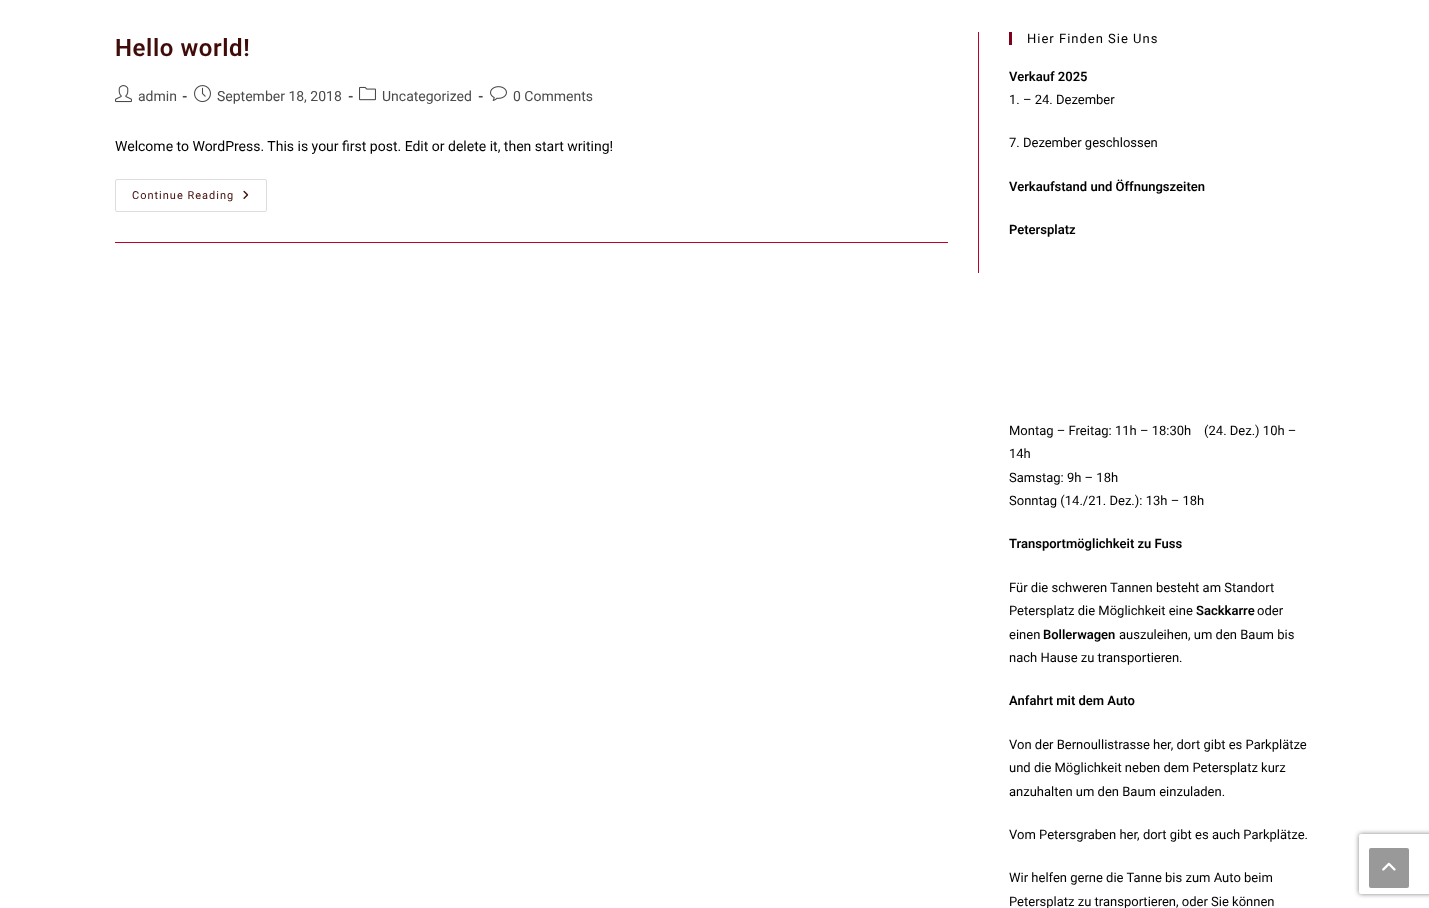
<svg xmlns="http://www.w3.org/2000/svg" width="1429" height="908">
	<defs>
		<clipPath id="clip1"><path d="M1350 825H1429V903H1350ZM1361 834H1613C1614 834 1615 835 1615 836V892C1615 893 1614 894 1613 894H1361C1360 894 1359 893 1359 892V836C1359 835 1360 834 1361 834Z" clip-rule="evenodd" /></clipPath>
	</defs>
	<rect width="100%" height="100%" fill="#FFFFFF" />
	<rect x="978" y="32" width="1" height="241" fill="#BF002A" />
	<rect x="115" y="242" width="833" height="1" fill="#BF002A" />
	<text x="115" y="56" font-family="Roboto" font-size="24" font-weight="600" letter-spacing="0.6" fill="#400C0A">Hello world!</text>
	<image x="115" y="85" width="17" height="18" href="assets/img1.png" />
	<text x="138" y="101" font-family="Roboto" font-size="14" fill="#4A4A4A">admin</text>
	<text x="182" y="101" font-family="Roboto" font-size="14" font-weight="700" fill="#4A4A4A">-</text>
	<image x="194" y="85" width="17" height="18" href="assets/img2.png" />
	<text x="217" y="101" font-family="Roboto" font-size="14" fill="#4A4A4A">September 18, 2018</text>
	<text x="348" y="101" font-family="Roboto" font-size="14" font-weight="700" fill="#4A4A4A">-</text>
	<image x="359" y="86" width="17" height="15" href="assets/img3.png" />
	<text x="382" y="101" font-family="Roboto" font-size="14" fill="#4A4A4A">Uncategorized</text>
	<text x="478" y="101" font-family="Roboto" font-size="14" font-weight="700" fill="#4A4A4A">-</text>
	<image x="490" y="86" width="17" height="15" href="assets/img4.png" />
	<text x="513" y="101" font-family="Roboto" font-size="14" fill="#4A4A4A">0 Comments</text>
	<text x="115" y="151" font-family="Roboto" font-size="14" fill="#000000">Welcome to WordPress. This is your first post. Edit or delete it, then start writing!</text>
	<rect x="115.5" y="179.5" width="151" height="32" rx="1.5" fill="none" stroke="#DDDDDD" />
	<text x="132" y="199" font-family="Roboto" font-size="11" letter-spacing="1" fill="#400C0A">Continue Reading</text>
	<image x="243" y="190" width="6" height="9" href="assets/img5.png" />
	<rect x="1009" y="32" width="3" height="13" fill="#7F001C" />
	<text x="1027" y="43" font-family="Roboto" font-size="13" letter-spacing="1" fill="#000000">Hier Finden Sie Uns</text>
	<text x="1009" y="81" font-family="Roboto" font-size="13" font-weight="600" fill="#000000">Verkauf 2025</text>
	<g font-family="Roboto" font-size="13" fill="#000000">
		<text x="1009" y="104">1. – 24. Dezember</text>
		<text x="1009" y="147">7. Dezember geschlossen</text>
	</g>
	<g font-family="Roboto" font-size="13" font-weight="600" fill="#000000">
		<text x="1009" y="191">Verkaufstand und Öffnungszeiten</text>
		<text x="1009" y="234">Petersplatz</text>
	</g>
	<g font-family="Roboto" font-size="13" fill="#000000">
		<text x="1009" y="435" xml:space="preserve">Montag – Freitag: 11h – 18:30h    (24. Dez.) 10h –</text>
		<text x="1009" y="458">14h</text>
		<text x="1009" y="482">Samstag: 9h – 18h</text>
		<text x="1009" y="505">Sonntag (14./21. Dez.): 13h – 18h</text>
	</g>
	<text x="1009" y="548" font-family="Roboto" font-size="13" font-weight="600" fill="#000000">Transportmöglichkeit zu Fuss</text>
	<g font-family="Roboto" font-size="13" fill="#000000">
		<text x="1009" y="592">Für die schweren Tannen besteht am Standort</text>
		<text x="1009" y="615">Petersplatz die Möglichkeit eine</text>
	</g>
	<text x="1196" y="615" font-family="Roboto" font-size="13" font-weight="600" fill="#000000">Sackkarre</text>
	<g font-family="Roboto" font-size="13" fill="#000000">
		<text x="1257" y="615">oder</text>
		<text x="1009" y="639">einen</text>
	</g>
	<text x="1043" y="639" font-family="Roboto" font-size="13" font-weight="600" fill="#000000">Bollerwagen</text>
	<g font-family="Roboto" font-size="13" fill="#000000">
		<text x="1119" y="639">auszuleihen, um den Baum bis</text>
		<text x="1009" y="662">nach Hause zu transportieren.</text>
	</g>
	<text x="1009" y="705" font-family="Roboto" font-size="13" font-weight="600" fill="#000000">Anfahrt mit dem Auto</text>
	<g font-family="Roboto" font-size="13" fill="#000000">
		<text x="1009" y="749">Von der Bernoullistrasse her, dort gibt es Parkplätze</text>
		<text x="1009" y="772">und die Möglichkeit neben dem Petersplatz kurz</text>
		<text x="1009" y="796">anzuhalten um den Baum einzuladen.</text>
		<text x="1009" y="839">Vom Petersgraben her, dort gibt es auch Parkplätze.</text>
		<text x="1009" y="882">Wir helfen gerne die Tanne bis zum Auto beim</text>
		<text x="1009" y="906">Petersplatz zu transportieren, oder Sie können</text>
	</g>
	<g clip-path="url(#clip1)">
		<rect x="1359" y="834" width="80" height="60" rx="2" fill="#808080" filter="blur(2.5px)" />
	</g>
	<rect x="1369" y="848" width="40" height="40" rx="2" fill="#999999" />
	<image x="1382" y="862" width="14" height="9" href="assets/img6.png" />
</svg>
